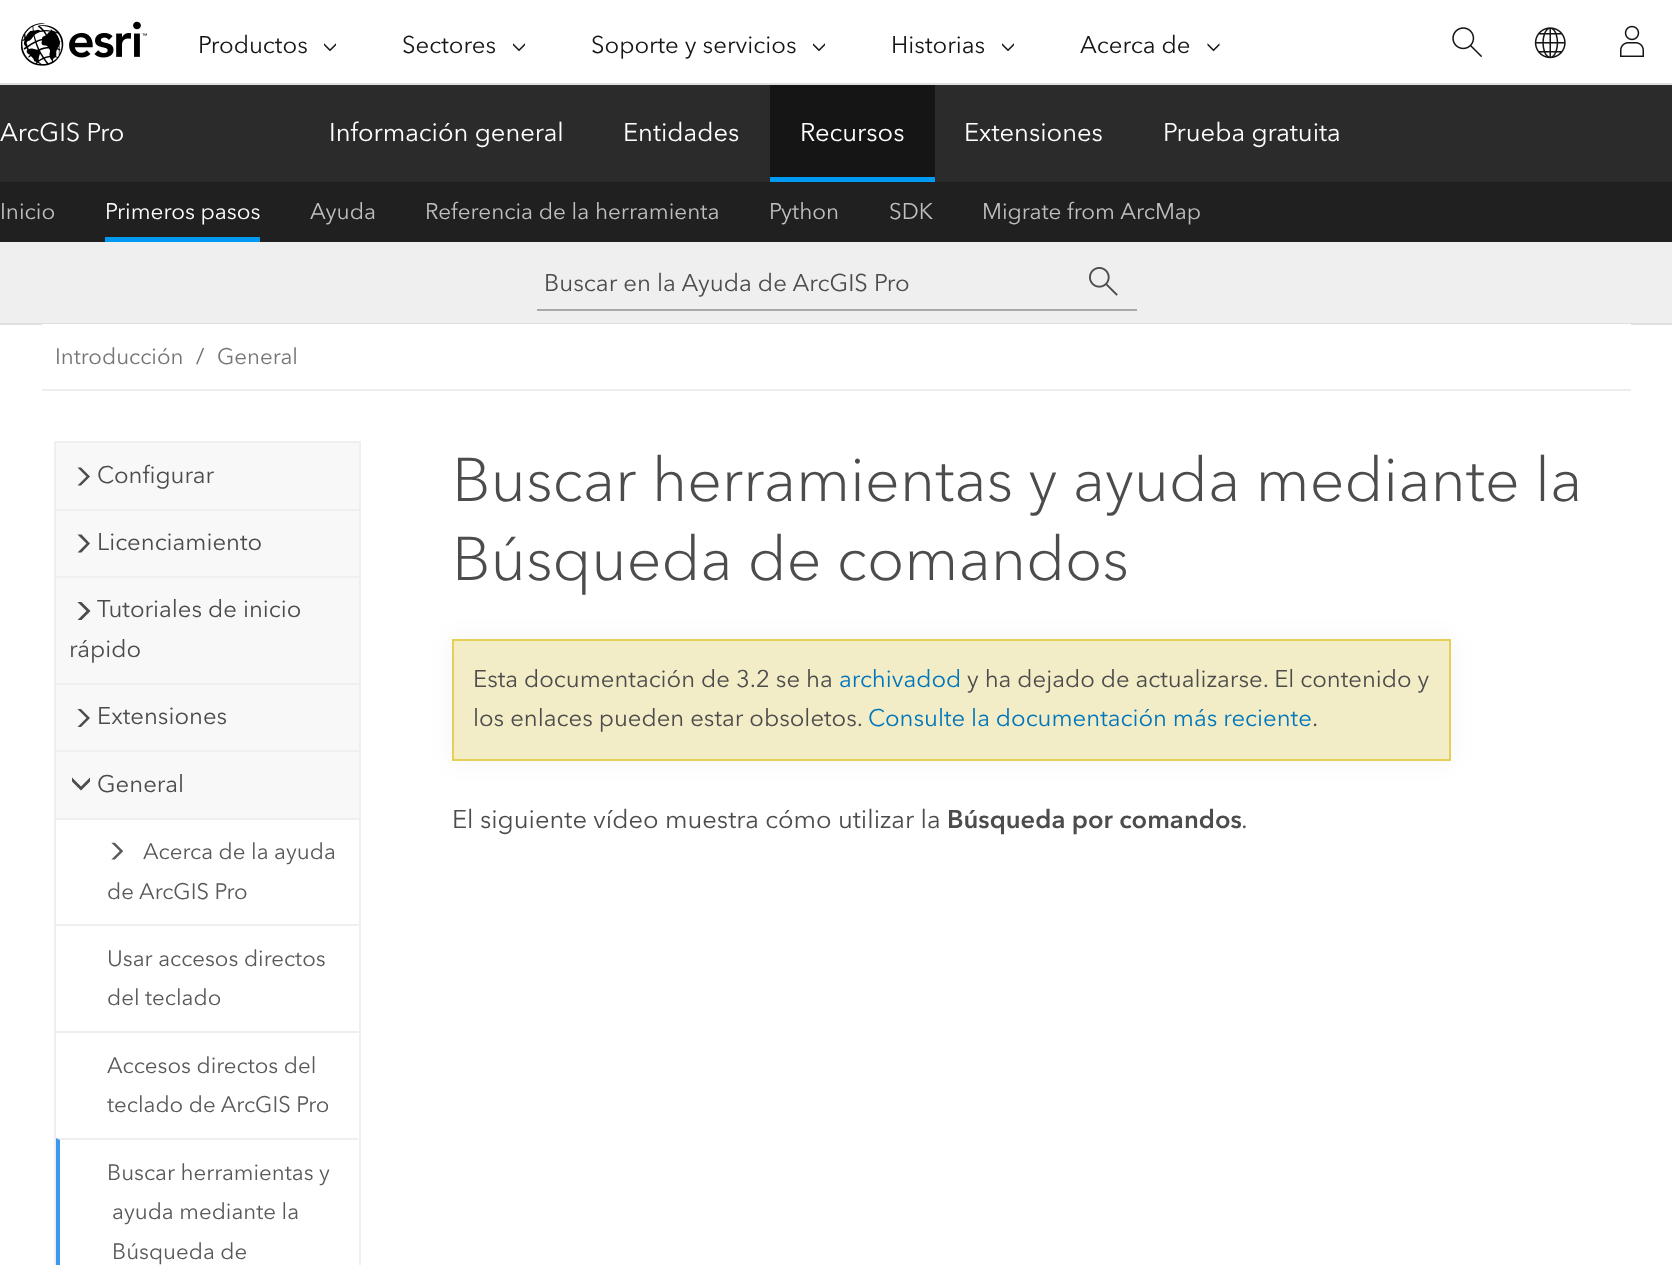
<svg xmlns="http://www.w3.org/2000/svg" width="1672" height="1265">
	<rect width="100%" height="100%" fill="#FFFFFF" />
	<rect x="0" y="83" width="1672" height="2" fill="#DFDFDF" />
	<image x="21" y="21" width="126" height="45" href="assets/img1.png" />
	<text x="198" y="53" font-family="'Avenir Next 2'" font-size="24" fill="#151515">Productos</text>
	<image x="324" y="43" width="12" height="9" href="assets/img2.png" />
	<text x="402" y="53" font-family="'Avenir Next 2'" font-size="24" fill="#151515">Sectores</text>
	<image x="513" y="43" width="12" height="9" href="assets/img2.png" />
	<text x="591" y="53" font-family="'Avenir Next 2'" font-size="24" fill="#151515">Soporte y servicios</text>
	<image x="813" y="43" width="12" height="9" href="assets/img2.png" />
	<text x="891" y="53" font-family="'Avenir Next 2'" font-size="24" fill="#151515">Historias</text>
	<image x="1002" y="43" width="12" height="9" href="assets/img2.png" />
	<text x="1080" y="53" font-family="'Avenir Next 2'" font-size="24" fill="#151515">Acerca de</text>
	<image x="1207" y="43" width="13" height="9" href="assets/img3.png" />
	<image x="1452" y="27" width="30" height="30" href="assets/img4.png" />
	<image x="1534" y="27" width="32" height="32" href="assets/img5.png" />
	<image x="1620" y="25" width="24" height="32" href="assets/img6.png" />
	<rect x="0" y="85" width="1672" height="97" fill="#2B2B2B" />
	<g font-family="Avenir Next" font-size="25.5" fill="#FFFFFF">
		<text x="0" y="141">ArcGIS Pro</text>
		<text x="329" y="141">Información general</text>
		<text x="623" y="141">Entidades</text>
	</g>
	<rect x="770" y="85" width="165" height="92" fill="#151515" />
	<rect x="770" y="177" width="165" height="5" fill="#009AF2" />
	<g font-family="Avenir Next" font-size="25.5" fill="#FFFFFF">
		<text x="800" y="141">Recursos</text>
		<text x="964" y="141">Extensiones</text>
		<text x="1163" y="141">Prueba gratuita</text>
	</g>
	<rect x="0" y="182" width="1672" height="60" fill="#202020" />
	<text x="0" y="219" font-family="Avenir Next" font-size="22.5" fill="#BFBFBF">Inicio</text>
	<rect x="105" y="237" width="155" height="5" fill="#009AF2" />
	<text x="105" y="219" font-family="Avenir Next" font-size="22.5" fill="#FFFFFF">Primeros pasos</text>
	<g font-family="Avenir Next" font-size="22.5" fill="#BFBFBF">
		<text x="310" y="219">Ayuda</text>
		<text x="425" y="219">Referencia de la herramienta</text>
		<text x="769" y="219">Python</text>
		<text x="889" y="219">SDK</text>
		<text x="982" y="219">Migrate from ArcMap</text>
	</g>
	<rect x="0" y="242" width="1672" height="81" fill="#EFEFEF" />
	<rect x="0" y="323" width="1672" height="2" fill="#E0E0E0" />
	<rect x="537" y="309" width="600" height="2" fill="#A9A9A9" />
	<text x="544" y="291" font-family="Avenir Next" font-size="24" fill="#4C4C4C">Buscar en la Ayuda de ArcGIS Pro</text>
	<image x="1089" y="267" width="29" height="29" href="assets/img7.png" />
	<rect x="42" y="324" width="1589" height="1" fill="#FFFFFF" />
	<rect x="42" y="389" width="1589" height="2" fill="#EDEDED" />
	<text x="55" y="364" font-family="Avenir Next" font-size="22.25" fill="#757575">Introducción</text>
	<text x="196" y="364" font-family="Avenir Next" font-size="22.25" fill="#6E6E6E">/</text>
	<text x="217" y="364" font-family="Avenir Next" font-size="22.25" fill="#757575">General</text>
	<rect x="359" y="441" width="2" height="824" fill="#EFEFEF" />
	<rect x="54" y="441" width="2" height="824" fill="#EFEFEF" />
	<rect x="56" y="443" width="303" height="66" fill="#F8F8F8" />
	<rect x="56" y="441" width="303" height="2" fill="#EFEFEF" />
	<path d="M77.5 467.5H81L90 476.5L81 485.5H77.5L86.5 476.5Z" fill="#4C4C4C" />
	<text x="97" y="483" font-family="Avenir Next" font-size="23.9" fill="#4C4C4C">Configurar</text>
	<rect x="56" y="511" width="303" height="65" fill="#F8F8F8" />
	<rect x="56" y="509" width="303" height="2" fill="#EFEFEF" />
	<path d="M77.5 534.5H81.5L90 543.5L81.5 552.5H77.5L86.5 543.5Z" fill="#4C4C4C" />
	<text x="97" y="550" font-family="Avenir Next" font-size="23.9" fill="#4C4C4C">Licenciamiento</text>
	<rect x="56" y="578" width="303" height="105" fill="#F8F8F8" />
	<rect x="56" y="576" width="303" height="2" fill="#EFEFEF" />
	<path d="M77.5 602H81.5L90.5 611L81.5 620H77.5L86.5 611Z" fill="#4C4C4C" />
	<g font-family="Avenir Next" font-size="23.9" fill="#4C4C4C">
		<text x="97" y="617">Tutoriales de inicio</text>
		<text x="69" y="657">rápido</text>
	</g>
	<rect x="56" y="685" width="303" height="65" fill="#F8F8F8" />
	<rect x="56" y="683" width="303" height="2" fill="#EFEFEF" />
	<path d="M77.5 709H81L90 718L81 727H77.5L86.5 718Z" fill="#4C4C4C" />
	<text x="97" y="724" font-family="Avenir Next" font-size="23.9" fill="#4C4C4C">Extensiones</text>
	<rect x="56" y="752" width="303" height="66" fill="#F8F8F8" />
	<rect x="56" y="750" width="303" height="2" fill="#EFEFEF" />
	<path d="M90 777.5V781.5L81 790.5L72 781.5V777.5L81 786.5Z" fill="#4C4C4C" />
	<text x="97" y="792" font-family="Avenir Next" font-size="23.9" fill="#4C4C4C">General</text>
	<rect x="56" y="818" width="303" height="2" fill="#EFEFEF" />
	<image x="111" y="842" width="13" height="18" href="assets/img8.png" />
	<g font-family="Avenir Next" font-size="22.25" fill="#595959">
		<text x="143" y="859">Acerca de la ayuda</text>
		<text x="107" y="899">de ArcGIS Pro</text>
	</g>
	<rect x="56" y="924" width="303" height="2" fill="#EFEFEF" />
	<g font-family="Avenir Next" font-size="22.25" fill="#595959">
		<text x="107" y="966">Usar accesos directos</text>
		<text x="107" y="1005">del teclado</text>
	</g>
	<rect x="56" y="1031" width="303" height="2" fill="#EFEFEF" />
	<g font-family="Avenir Next" font-size="22.25" fill="#595959">
		<text x="107" y="1073">Accesos directos del</text>
		<text x="107" y="1112">teclado de ArcGIS Pro</text>
	</g>
	<path d="M56 1138H358V1140H60Z" fill="#EFEFEF" />
	<path d="M56 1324V1138L60 1140V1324Z" fill="#3C98EE" />
	<g font-family="Avenir Next" font-size="22.25" fill="#595959">
		<text x="107" y="1180">Buscar herramientas y</text>
		<text x="112" y="1219">ayuda mediante la</text>
		<text x="112" y="1259">Búsqueda de</text>
	</g>
	<g font-family="Avenir Next" font-size="61.25" font-weight="300" fill="#4C4C4C">
		<text x="452" y="501">Buscar herramientas y ayuda mediante la</text>
		<text x="452" y="580">Búsqueda de comandos</text>
	</g>
	<rect x="452" y="639" width="999" height="122" fill="#000000" fill-opacity="0.05" filter="blur(12px)" />
	<rect x="453" y="640" width="997" height="120" fill="#F3EDC7" stroke="#E4D154" stroke-width="2" />
	<text x="473" y="687" font-family="Avenir Next" font-size="23.9" fill="#4C4C4C">Esta documentación de 3.2 se ha</text>
	<text x="839" y="687" font-family="Avenir Next" font-size="23.9" fill="#0076BC">archivadod</text>
	<g font-family="Avenir Next" font-size="23.9" fill="#4C4C4C">
		<text x="967" y="687">y ha dejado de actualizarse. El contenido y</text>
		<text x="473" y="726">los enlaces pueden estar obsoletos.</text>
	</g>
	<text x="868" y="726" font-family="Avenir Next" font-size="23.9" fill="#0076BC">Consulte la documentación más reciente</text>
	<text x="1312" y="726" font-family="Avenir Next" font-size="23.9" fill="#4C4C4C">.</text>
	<text x="452" y="828" font-family="Avenir Next" font-size="25.5" fill="#4C4C4C">El siguiente vídeo muestra cómo utilizar la</text>
	<text x="947" y="828" font-family="Avenir Next" font-size="25.5" font-weight="700" fill="#4C4C4C">Búsqueda por comandos</text>
	<text x="1241" y="828" font-family="Avenir Next" font-size="25.5" fill="#4C4C4C">.</text>
</svg>
